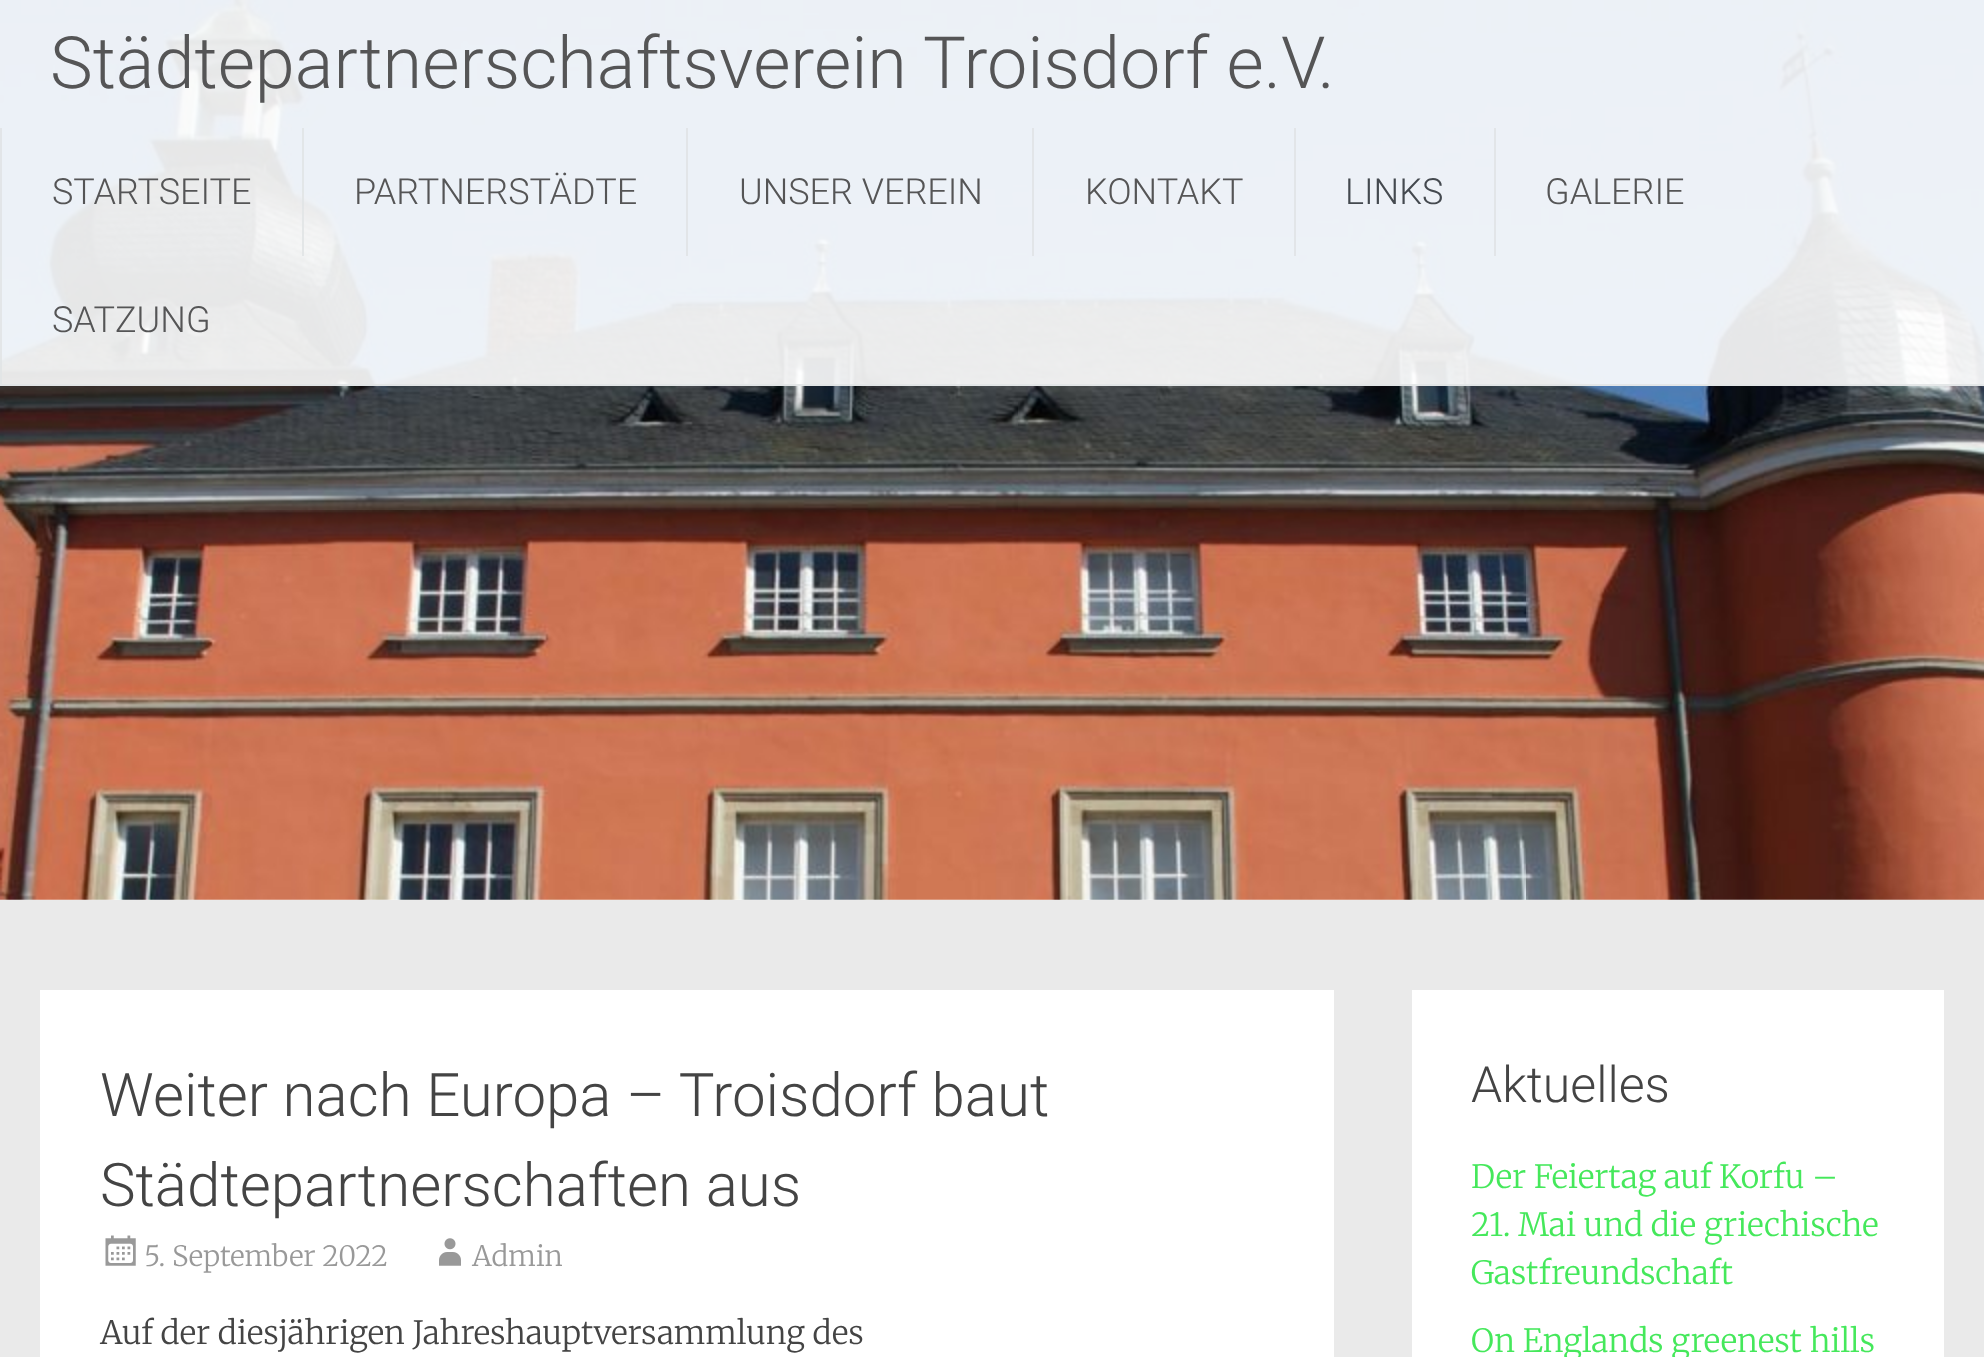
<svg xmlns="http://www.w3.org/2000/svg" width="1984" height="1357">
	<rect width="100%" height="100%" fill="#FFFFFF" />
	<image x="0" y="0" width="1984" height="900" href="assets/img1.png" />
	<rect x="0" y="0" width="1984" height="386" fill="#FFFFFF" fill-opacity="0.9" />
	<rect x="0" y="384" width="1984" height="2" fill="#E1E4E6" fill-opacity="0.9" />
	<text x="50" y="88" font-family="Roboto" font-size="72" font-weight="300" fill="#555556">Städtepartnerschaftsverein Troisdorf e.V.</text>
	<rect x="0" y="128" width="2" height="128" fill="#E2E5E8" />
	<text x="52" y="204" font-family="Roboto" font-size="36" font-weight="300" fill="#555556">STARTSEITE</text>
	<rect x="302" y="128" width="2" height="128" fill="#E1E4E6" fill-opacity="0.9" />
	<text x="354" y="204" font-family="Roboto" font-size="36" font-weight="300" fill="#555556">PARTNERSTÄDTE</text>
	<rect x="686" y="128" width="2" height="128" fill="#E2E5E8" />
	<text x="739" y="204" font-family="Roboto" font-size="36" font-weight="300" fill="#555556">UNSER VEREIN</text>
	<rect x="1032" y="128" width="2" height="128" fill="#E2E5E8" />
	<text x="1085" y="204" font-family="Roboto" font-size="36" font-weight="300" fill="#555556">KONTAKT</text>
	<rect x="1294" y="128" width="2" height="128" fill="#E2E5E8" />
	<text x="1345" y="204" font-family="Roboto" font-size="36" font-weight="300" fill="#44494F">LINKS</text>
	<rect x="1494" y="128" width="2" height="128" fill="#E2E5E8" />
	<text x="1545" y="204" font-family="Roboto" font-size="36" font-weight="300" fill="#555556">GALERIE</text>
	<rect x="0" y="256" width="2" height="128" fill="#E1E4E6" fill-opacity="0.9" />
	<text x="52" y="332" font-family="Roboto" font-size="36" font-weight="300" fill="#555556">SATZUNG</text>
	<rect x="0" y="900" width="1984" height="457" fill="#EAEAEA" />
	<rect x="40" y="990" width="1294" height="367" fill="#FFFFFF" />
	<g font-family="Roboto" font-size="60" font-weight="300" fill="#444444">
		<text x="100" y="1116">Weiter nach Europa – Troisdorf baut</text>
		<text x="100" y="1206">Städtepartnerschaften aus</text>
	</g>
	<image x="105" y="1235" width="31" height="31" href="assets/img2.png" />
	<text x="144" y="1266" font-family="Merriweather" font-size="28" font-weight="300" fill="#999999">5. September 2022</text>
	<image x="439" y="1238" width="22" height="28" href="assets/img3.png" />
	<text x="472" y="1266" font-family="Merriweather" font-size="28" font-weight="300" fill="#999999">Admin</text>
	<text x="100" y="1344" font-family="Merriweather" font-size="32" font-weight="300" fill="#444444">Auf der diesjährigen Jahreshauptversammlung des</text>
	<rect x="1412" y="990" width="532" height="367" fill="#FFFFFF" />
	<text x="1471" y="1102" font-family="Roboto" font-size="50" font-weight="300" fill="#444444">Aktuelles</text>
	<g font-family="Merriweather" font-size="32" font-weight="300" fill="#45E85B">
		<text x="1471" y="1188">Der Feiertag auf Korfu –</text>
		<text x="1471" y="1236">21. Mai und die griechische</text>
		<text x="1471" y="1284">Gastfreundschaft</text>
		<text x="1471" y="1352">On Englands greenest hills</text>
	</g>
</svg>
